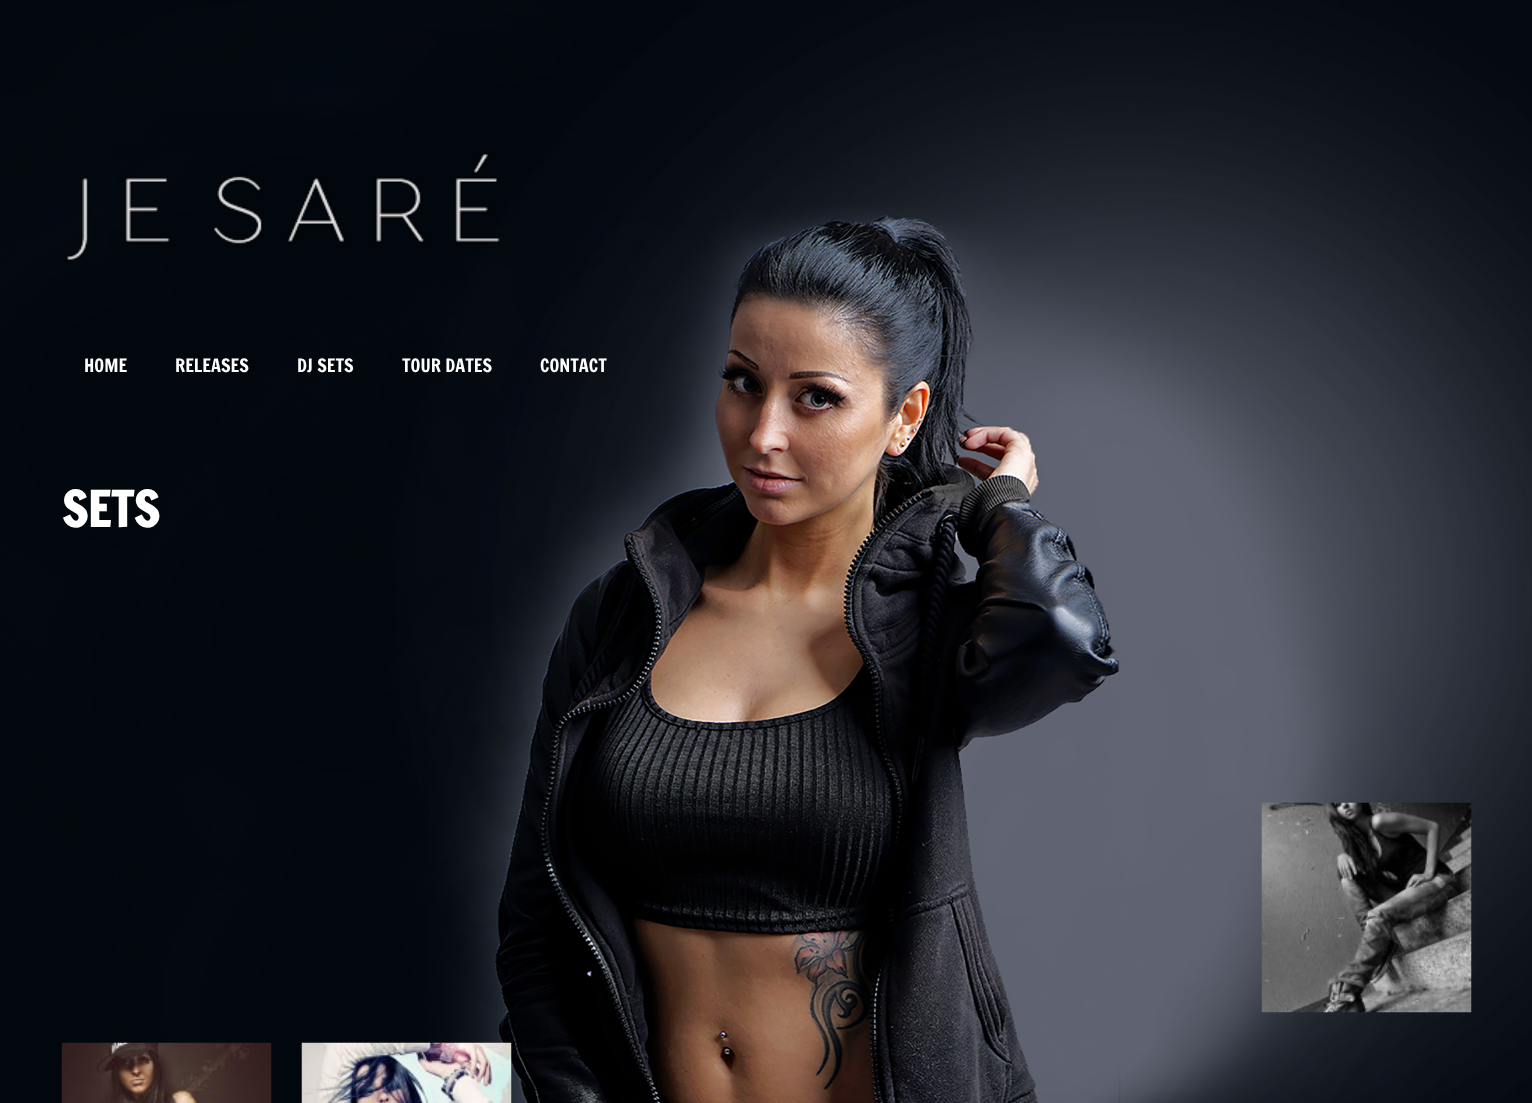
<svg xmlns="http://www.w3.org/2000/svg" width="1532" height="1103">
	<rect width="100%" height="100%" fill="#FFFFFF" />
	<image x="0" y="0" width="1532" height="1103" href="assets/img1.png" />
	<image x="66" y="153" width="434" height="108" href="assets/img2.png" />
	<g font-family="Francois One" font-size="18" fill="#FFFFFF">
		<text x="84" y="372">HOME</text>
		<text x="175" y="372">RELEASES</text>
		<text x="297" y="372">DJ SETS</text>
		<text x="402" y="372">TOUR DATES</text>
		<text x="540" y="372">CONTACT</text>
	</g>
	<text x="62" y="527" font-family="Francois One" font-size="48" font-weight="700" fill="#FFFFFF">SETS</text>
	<image x="1261" y="802" width="211" height="211" href="assets/img3.png" />
	<image x="61" y="1042" width="211" height="61" href="assets/img4.png" />
	<image x="301" y="1042" width="211" height="61" href="assets/img5.png" />
</svg>
